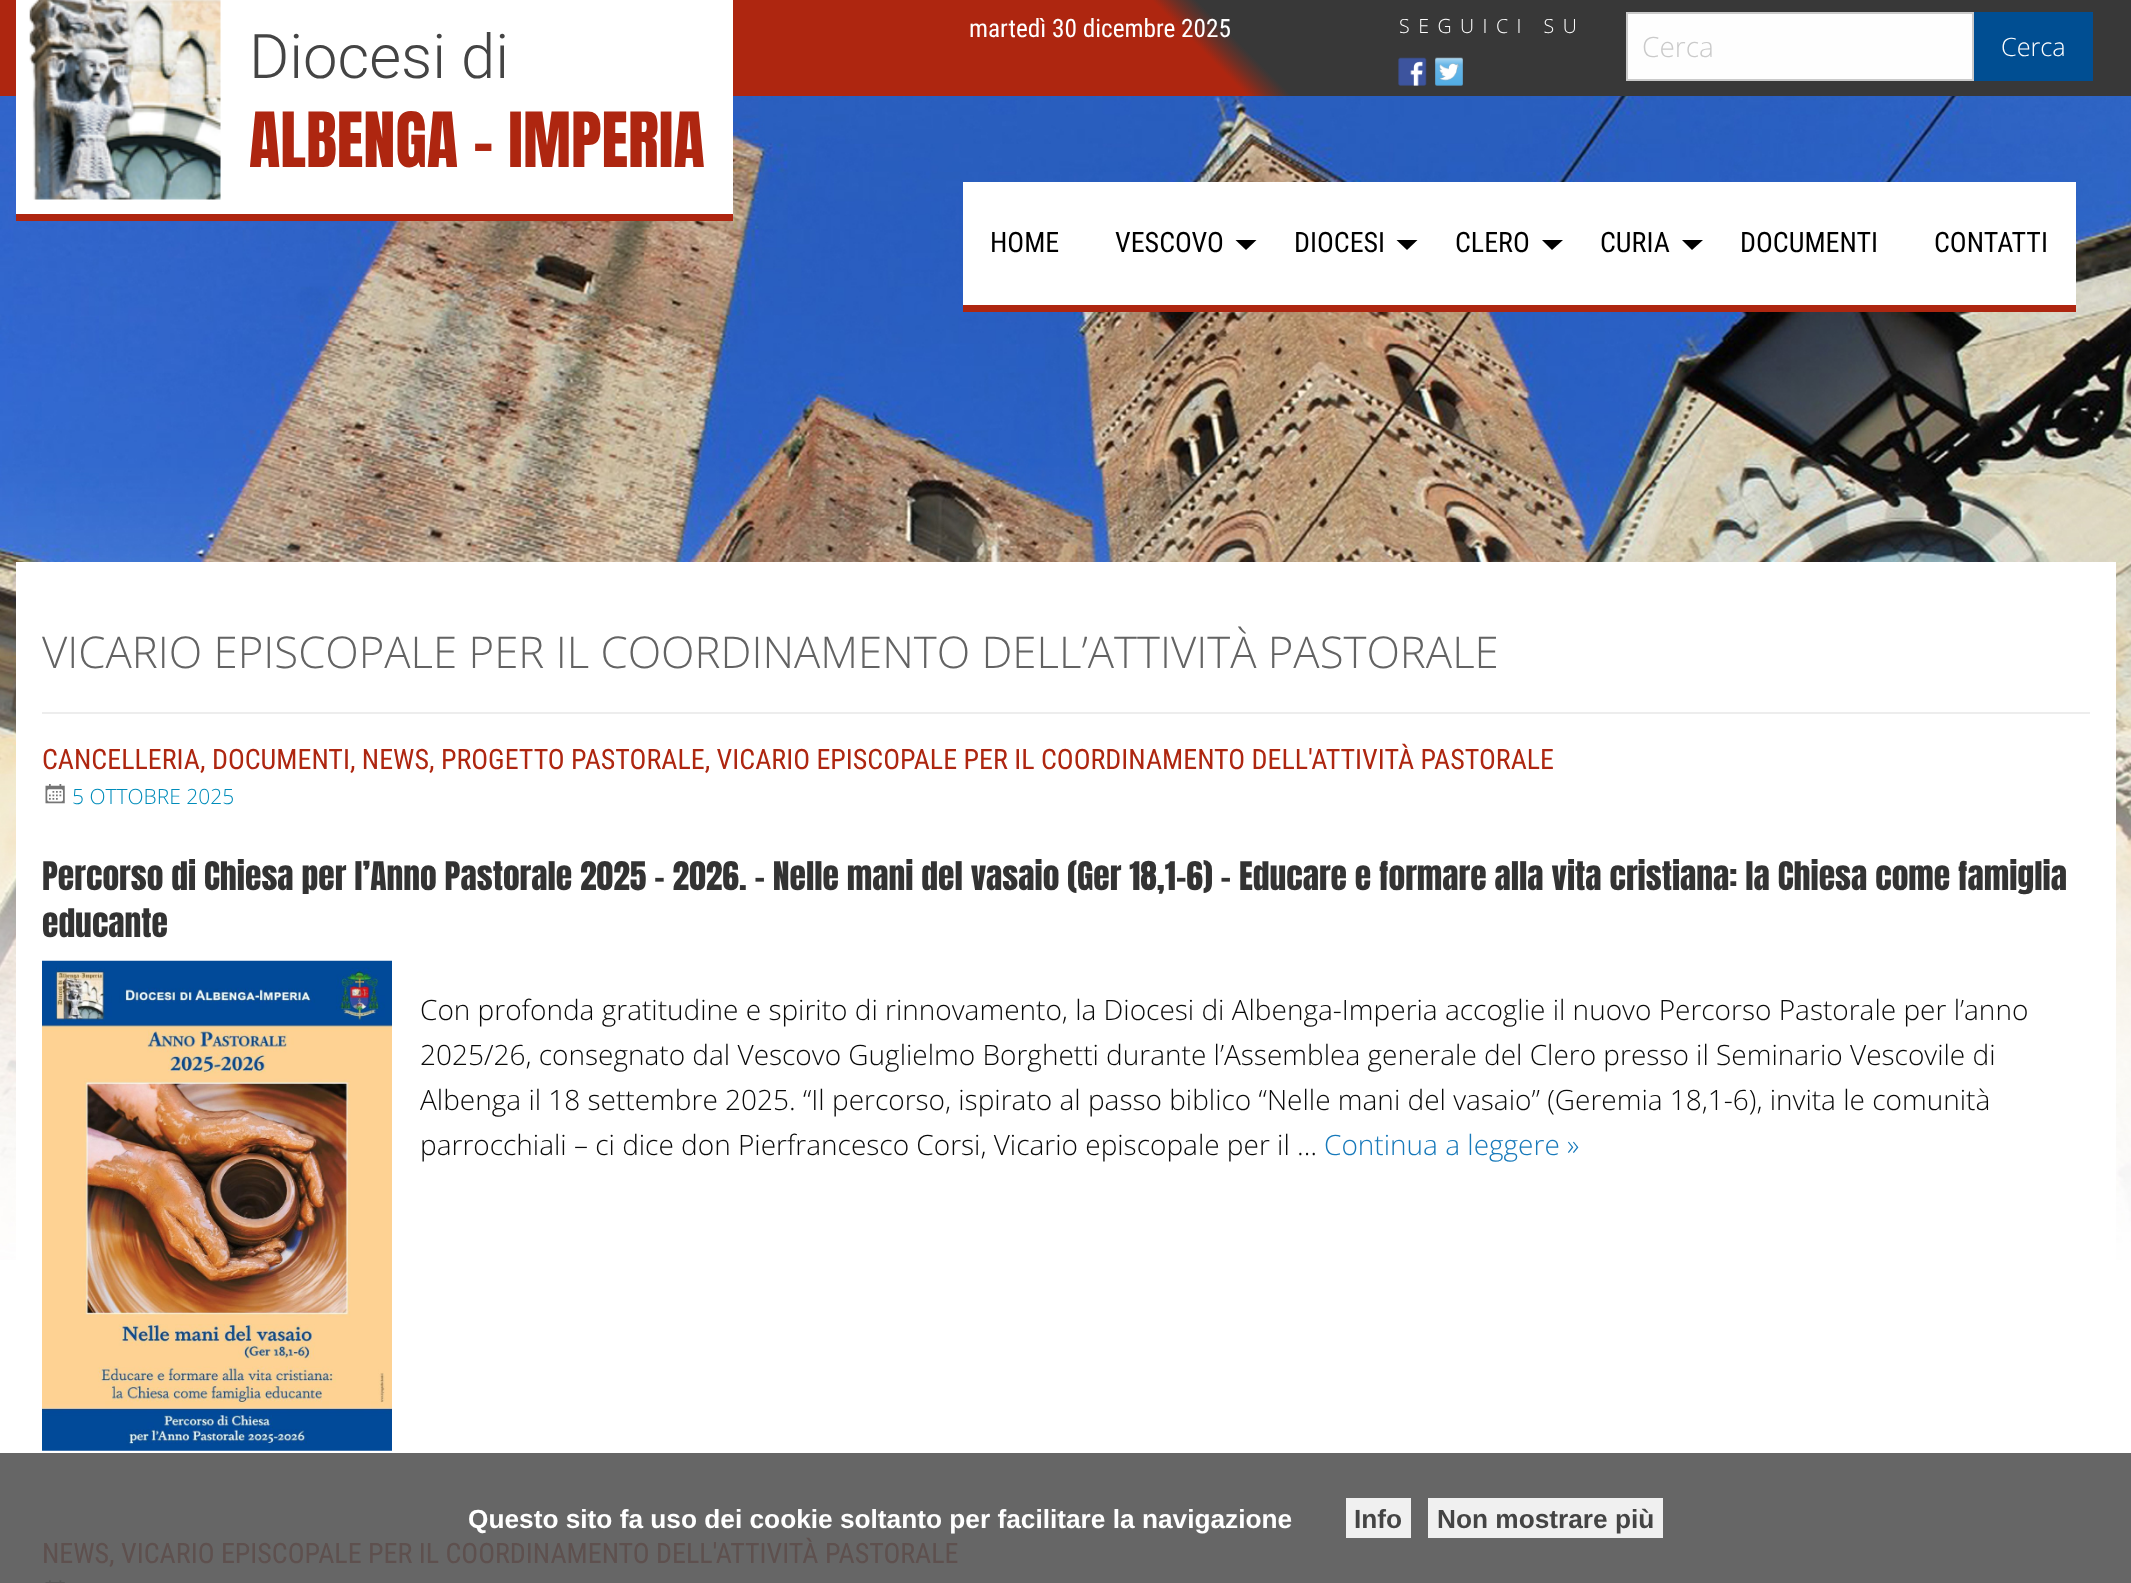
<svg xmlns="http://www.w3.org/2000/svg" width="2131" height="1583">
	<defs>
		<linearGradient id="g1" gradientUnits="userSpaceOnUse" x1="509" y1="605" x2="1623" y2="-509"><stop offset="0" stop-color="#AE2610" /><stop offset="0.56" stop-color="#AE2610" /><stop offset="0.57" stop-color="#6C3026" /><stop offset="0.58" stop-color="#383838" /><stop offset="1" stop-color="#383838" /></linearGradient>
	</defs>
	<rect width="100%" height="100%" fill="#FFFFFF" />
	<rect x="0" y="1453" width="2131" height="130" fill="#666666" />
	<rect x="0" y="0" width="2131" height="96" fill="url(#g1)" />
	<image x="0" y="96" width="2131" height="1164" href="assets/img2.png" />
	<rect x="16" y="0" width="717" height="214" fill="#FFFFFF" />
	<rect x="16" y="214" width="717" height="7" fill="#AE2610" />
	<image x="29" y="0" width="192" height="200" href="assets/img1.png" />
	<text x="249" y="78" font-family="Roboto" font-size="61.5" font-weight="300" fill="#444444">Diocesi di</text>
	<text x="249" y="167" font-family="Anton" font-size="64.5" fill="#AE2610">ALBENGA – IMPERIA</text>
	<text x="969" y="37" font-family="Roboto Condensed" font-size="25.25" fill="#FFFFFF">martedì 30 dicembre 2025</text>
	<text x="1399" y="33" font-family="Open Sans" font-size="19.5" font-weight="300" letter-spacing="8.5" fill="#FFFFFF">SEGUICI SU</text>
	<image x="1398" y="57" width="29" height="29" href="assets/img3.png" />
	<image x="1435" y="57" width="28" height="29" href="assets/img4.png" />
	<rect x="1627" y="13" width="346" height="67" fill="#FEFEFE" stroke="#CACACA" stroke-width="2" />
	<text x="1642" y="57" font-family="Open Sans" font-size="28" font-weight="300" fill="#CACACA">Cerca</text>
	<rect x="1974" y="12" width="119" height="69" fill="#004E92" />
	<text x="2001" y="56" font-family="Open Sans" font-size="25.25" font-weight="300" fill="#FFFFFF">Cerca</text>
	<rect x="963" y="305" width="1113" height="7" fill="#AE2610" />
	<rect x="963" y="182" width="1113" height="123" fill="#FFFFFF" />
	<g font-family="Roboto Condensed" font-size="28" fill="#000000">
		<text x="990" y="252">HOME</text>
		<text x="1115" y="252">VESCOVO</text>
	</g>
	<path d="M1235.5 240H1256.5L1246 250Z" fill="#000000" />
	<text x="1294" y="252" font-family="Roboto Condensed" font-size="28" fill="#000000">DIOCESI</text>
	<path d="M1396.5 240H1417.5L1407 250Z" fill="#000000" />
	<text x="1455" y="252" font-family="Roboto Condensed" font-size="28" fill="#000000">CLERO</text>
	<path d="M1542 240H1563L1552 250Z" fill="#000000" />
	<text x="1600" y="252" font-family="Roboto Condensed" font-size="28" fill="#000000">CURIA</text>
	<path d="M1682 240H1703L1692 250Z" fill="#000000" />
	<g font-family="Roboto Condensed" font-size="28" fill="#000000">
		<text x="1740" y="252">DOCUMENTI</text>
		<text x="1934" y="252">CONTATTI</text>
	</g>
	<rect x="16" y="562" width="2100" height="698" fill="#FFFFFF" />
	<rect x="42" y="712" width="2048" height="2" fill="#EDEDED" />
	<text x="42" y="668" font-family="Open Sans" font-size="43.75" font-weight="300" fill="#636363">VICARIO EPISCOPALE PER IL COORDINAMENTO DELL’ATTIVITÀ PASTORALE</text>
	<text x="42" y="769" font-family="Roboto Condensed" font-size="28" fill="#AE2610">CANCELLERIA, DOCUMENTI, NEWS, PROGETTO PASTORALE, VICARIO EPISCOPALE PER IL COORDINAMENTO DELL'ATTIVITÀ PASTORALE</text>
	<image x="45" y="784" width="20" height="20" href="assets/img5.png" />
	<text x="72" y="804" font-family="Open Sans" font-size="21" font-weight="300" fill="#008CBA">5 OTTOBRE 2025</text>
	<g font-family="Anton" font-size="33.6" fill="#333333">
		<text x="42" y="890">Percorso di Chiesa per l’Anno Pastorale 2025 – 2026. – Nelle mani del vasaio (Ger 18,1-6) – Educare e formare alla vita cristiana: la Chiesa come famiglia</text>
		<text x="42" y="937">educante</text>
	</g>
	<image x="42" y="960" width="350" height="491" href="assets/img6.png" />
	<g font-family="Open Sans" font-size="28" font-weight="300" fill="#0A0A0A">
		<text x="420" y="1020">Con profonda gratitudine e spirito di rinnovamento, la Diocesi di Albenga-Imperia accoglie il nuovo Percorso Pastorale per l’anno</text>
		<text x="420" y="1065">2025/26, consegnato dal Vescovo Guglielmo Borghetti durante l’Assemblea generale del Clero presso il Seminario Vescovile di</text>
		<text x="420" y="1110">Albenga il 18 settembre 2025. “Il percorso, ispirato al passo biblico “Nelle mani del vasaio” (Geremia 18,1-6), invita le comunità</text>
		<text x="420" y="1155">parrocchiali – ci dice don Pierfrancesco Corsi, Vicario episcopale per il …</text>
	</g>
	<text x="1324" y="1155" font-family="Open Sans" font-size="28" font-weight="300" fill="#1779BA">Continua a leggere »</text>
	<text x="42" y="1563" font-family="Roboto Condensed" font-size="28" fill="#5E504E">NEWS, VICARIO EPISCOPALE PER IL COORDINAMENTO DELL'ATTIVITÀ PASTORALE</text>
	<image x="45" y="1580" width="20" height="3" href="assets/img7.png" />
	<text x="468" y="1528" font-family="Liberation Sans" font-size="26.25" font-weight="700" fill="#FFFFFF">Questo sito fa uso dei cookie soltanto per facilitare la navigazione</text>
	<rect x="1346" y="1498" width="65" height="40" fill="#F0F0F0" />
	<text x="1354" y="1528" font-family="Liberation Sans" font-size="26.25" font-weight="700" fill="#444444">Info</text>
	<rect x="1428" y="1498" width="235" height="40" fill="#F0F0F0" />
	<text x="1437" y="1528" font-family="Liberation Sans" font-size="26.25" font-weight="700" fill="#444444">Non mostrare più</text>
</svg>
